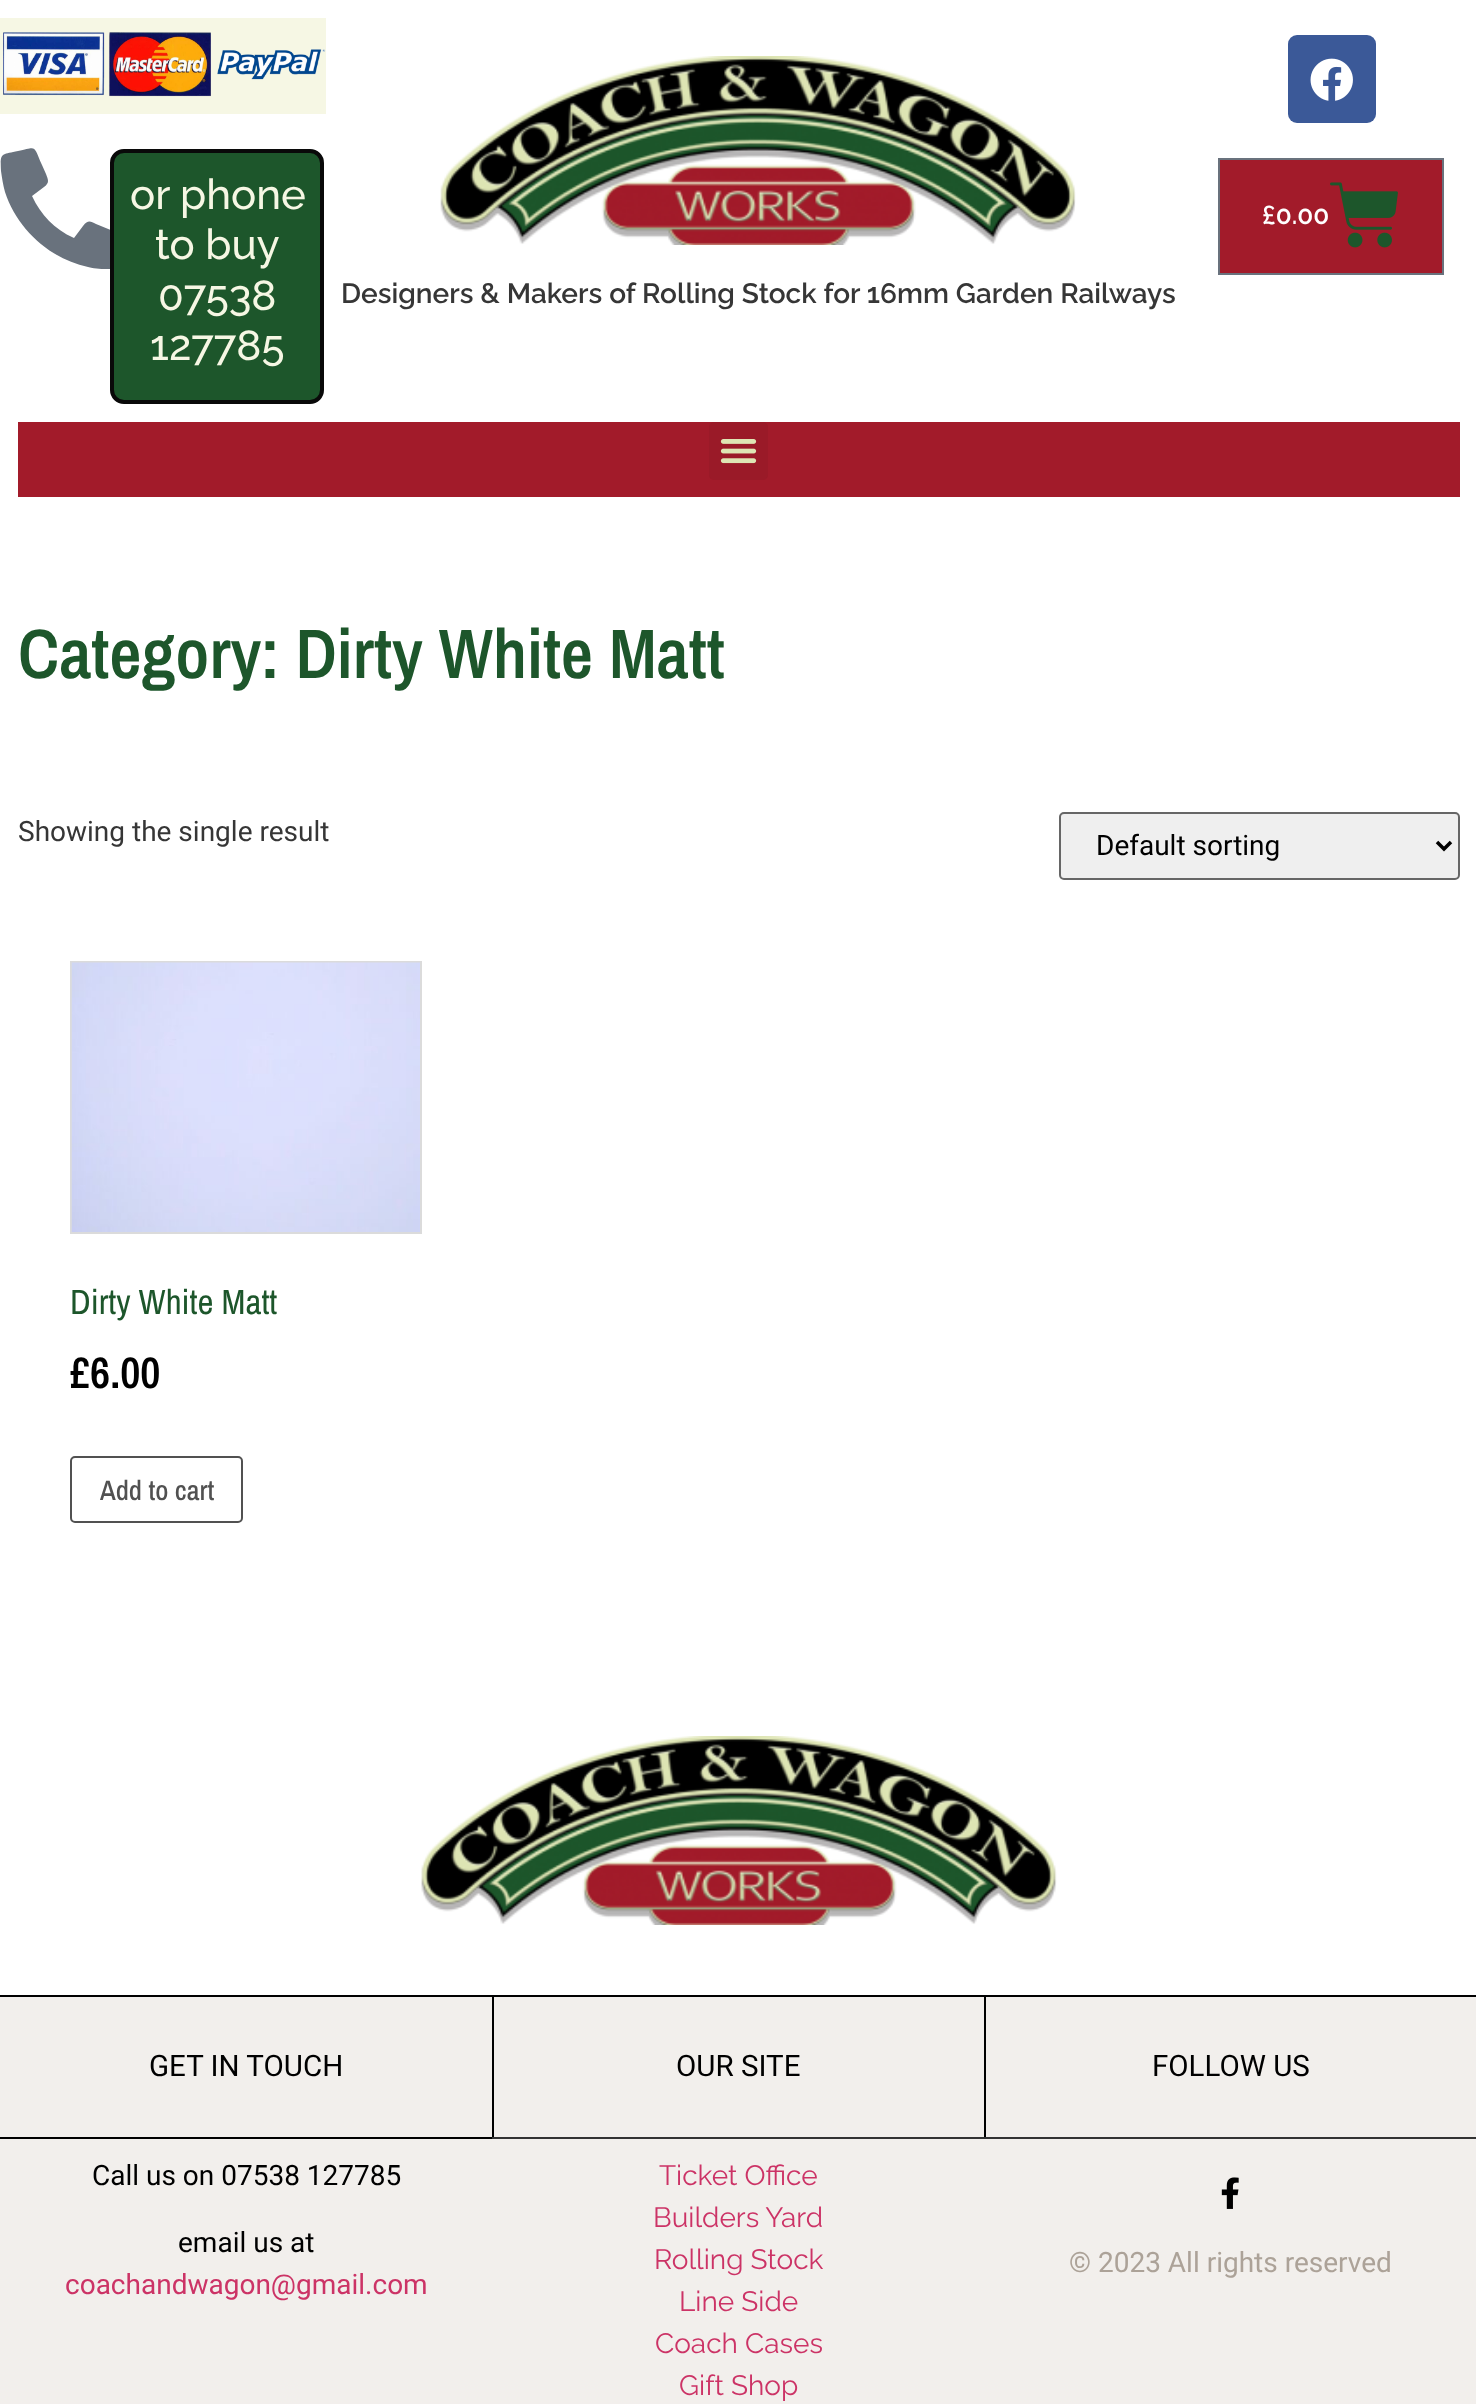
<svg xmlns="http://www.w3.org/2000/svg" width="1476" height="2404">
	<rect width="100%" height="100%" fill="#FFFFFF" />
	<rect x="0" y="18" width="326" height="96" fill="#F6F7E4" />
	<image x="3" y="32" width="323" height="65" href="assets/img1.png" />
	<path d="M118 233C120 234 122 237 122 239L118 256C117 260 117 269 110 269C101 269 97 269 88 267C50 259 17 229 5 192C3 185 2 178 1 171C0 152 1 155 18 151C37 147 33 144 42 165L46 174C48 180 50 182 44 187L32 196C41 215 54 229 74 238L83 226C88 220 90 221 96 224Z" fill="#69727D" />
	<rect x="112" y="151" width="210" height="251" rx="12" fill="#1D562B" stroke="#090909" stroke-width="4" />
	<g font-family="Raleway" font-size="42" font-weight="500" fill="#F6F7E4">
		<text x="130" y="209">or phone</text>
		<text x="155" y="259">to buy</text>
		<text x="158" y="310">07538</text>
		<text x="150" y="360">127785</text>
	</g>
	<rect x="1288" y="35" width="88" height="88" rx="9" fill="#3B5998" />
	<image x="1310" y="58" width="43" height="43" href="assets/img2.png" />
	<rect x="1219" y="159" width="224" height="115" fill="#A21B2A" stroke="#69727D" stroke-width="2" />
	<text x="1262" y="224" font-family="Raleway" font-size="26" font-weight="600" fill="#FFFFFF">£0.00</text>
	<image x="1330" y="182" width="68" height="66" href="assets/img3.png" />
	<image x="440" y="56" width="636" height="189" href="assets/img4.png" />
	<text x="341" y="303" font-family="Raleway" font-size="28" font-weight="600" fill="#363636">Designers &amp; Makers of Rolling Stock for 16mm Garden Railways</text>
	<rect x="18" y="422" width="1442" height="75" fill="#A21B2A" />
	<rect x="709" y="422" width="59" height="58" rx="5" fill="#9A1A28" />
	<image x="720" y="439" width="37" height="25" href="assets/img5.png" />
	<text x="18" y="678" font-family="Archivo Narrow" font-size="70" font-weight="600" fill="#1D562B">Category: Dirty White Matt</text>
	<text x="18" y="841" font-family="Roboto" font-size="28" fill="#363636">Showing the single result</text>
	<rect x="1060" y="813" width="399" height="66" rx="4" fill="#EFEFEF" stroke="#666666" stroke-width="2" />
	<path d="M1437 842L1444 849L1451 842" fill="none" stroke="#000000" stroke-width="3.5" />
	<text x="1096" y="855" font-family="Roboto" font-size="28" fill="#000000">Default sorting</text>
	<rect x="71" y="962" width="350" height="271" fill="none" stroke="#DBDBDB" stroke-width="2" />
	<image x="71" y="962" width="349" height="270" href="assets/img6.png" />
	<text x="70" y="1314" font-family="Archivo Narrow" font-size="35" fill="#1D562B">Dirty White Matt</text>
	<text x="70" y="1388" font-family="Archivo Narrow" font-size="44" font-weight="600" fill="#000000">£6.00</text>
	<rect x="71" y="1457" width="171" height="65" rx="4" fill="none" stroke="#515151" stroke-width="2" />
	<text x="100" y="1500" font-family="Archivo Narrow" font-size="28" font-weight="500" fill="#515151">Add to cart</text>
	<image x="421" y="1736" width="636" height="189" href="assets/img7.png" />
	<rect x="0" y="1997" width="1476" height="407" fill="#F2EFEC" />
	<rect x="0" y="1995" width="1476" height="2" fill="#000000" />
	<text x="149" y="2076" font-family="Roboto" font-size="29.5" fill="#000000">GET IN TOUCH</text>
	<rect x="0" y="2137" width="492" height="2" fill="#000000" />
	<g font-family="Roboto" font-size="28" fill="#000000">
		<text x="92" y="2185">Call us on 07538 127785</text>
		<text x="178" y="2252">email us at</text>
	</g>
	<text x="65" y="2294" font-family="Roboto" font-size="28" fill="#CC3366">coachandwagon@gmail.com</text>
	<rect x="984" y="1997" width="2" height="140" fill="#000000" />
	<rect x="492" y="1997" width="2" height="140" fill="#000000" />
	<text x="676" y="2076" font-family="Roboto" font-size="29.5" fill="#000000">OUR SITE</text>
	<rect x="492" y="2137" width="984" height="2" fill="#333333" />
	<g font-family="Raleway" font-size="28" fill="#CC3366">
		<text x="659" y="2185">Ticket Office</text>
		<text x="653" y="2227">Builders Yard</text>
		<text x="654" y="2269">Rolling Stock</text>
		<text x="679" y="2311">Line Side</text>
		<text x="655" y="2353">Coach Cases</text>
		<text x="679" y="2395">Gift Shop</text>
	</g>
	<text x="1152" y="2076" font-family="Roboto" font-size="29.5" fill="#000000">FOLLOW US</text>
	<image x="1221" y="2177" width="18" height="32" href="assets/img8.png" />
	<text x="1069" y="2272" font-family="Roboto" font-size="28" fill="#ACA298">© 2023 All rights reserved</text>
</svg>
